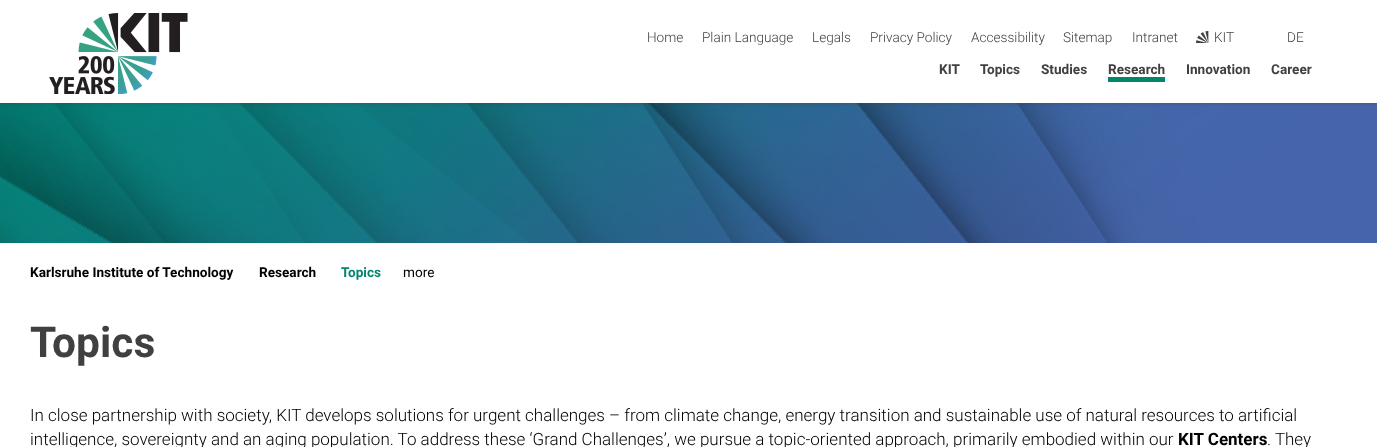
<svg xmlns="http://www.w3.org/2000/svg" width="1377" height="447">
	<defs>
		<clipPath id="clip1"><rect x="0" y="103" width="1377" height="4" /></clipPath>
	</defs>
	<rect width="100%" height="100%" fill="#FFFFFF" />
	<image x="0" y="103" width="1377" height="140" href="assets/img3.png" />
	<g clip-path="url(#clip1)">
		<rect x="0" y="0" width="1377" height="103" fill="#404040" fill-opacity="0.5" filter="blur(2.5px)" />
	</g>
	<image x="49" y="13" width="139" height="81" href="assets/img1.png" />
	<g font-family="Roboto" font-size="13.6" font-weight="300" fill="#404040">
		<text x="647" y="42">Home</text>
		<text x="702" y="42">Plain Language</text>
		<text x="812" y="42">Legals</text>
		<text x="870" y="42">Privacy Policy</text>
		<text x="971" y="42">Accessibility</text>
		<text x="1063" y="42">Sitemap</text>
		<text x="1132" y="42">Intranet</text>
	</g>
	<image x="1196" y="31" width="13" height="12" href="assets/img2.png" />
	<g font-family="Roboto" font-size="13.6" font-weight="300" fill="#404040">
		<text x="1214" y="42">KIT</text>
		<text x="1287" y="42">DE</text>
	</g>
	<g font-family="Roboto" font-size="13.6" font-weight="700" fill="#404040">
		<text x="939" y="74">KIT</text>
		<text x="980" y="74">Topics</text>
		<text x="1041" y="74">Studies</text>
		<text x="1108" y="74">Research</text>
	</g>
	<rect x="1108" y="77" width="57" height="5" fill="#00876C" />
	<g font-family="Roboto" font-size="13.6" font-weight="700" fill="#404040">
		<text x="1186" y="74">Innovation</text>
		<text x="1271" y="74">Career</text>
	</g>
	<g font-family="Roboto" font-size="13.6" font-weight="700" fill="#000000">
		<text x="30" y="277">Karlsruhe Institute of Technology</text>
		<text x="259" y="277">Research</text>
	</g>
	<text x="341" y="277" font-family="Roboto" font-size="13.6" font-weight="700" fill="#00876C">Topics</text>
	<text x="403" y="277" font-family="Roboto" font-size="13.6" fill="#000000">more</text>
	<text x="30" y="357" font-family="Roboto" font-size="42.5" font-weight="700" fill="#404040">Topics</text>
	<g font-family="Roboto" font-size="17" font-weight="300" fill="#000000">
		<text x="30" y="421">In close partnership with society, KIT develops solutions for urgent challenges – from climate change, energy transition and sustainable use of natural resources to artificial</text>
		<text x="30" y="445">intelligence, sovereignty and an aging population. To address these ‘Grand Challenges’, we pursue a topic-oriented approach, primarily embodied within our</text>
	</g>
	<text x="1178" y="445" font-family="Roboto" font-size="17" font-weight="700" fill="#000000">KIT Centers</text>
	<text x="1267" y="445" font-family="Roboto" font-size="17" font-weight="300" fill="#000000">. They</text>
</svg>
